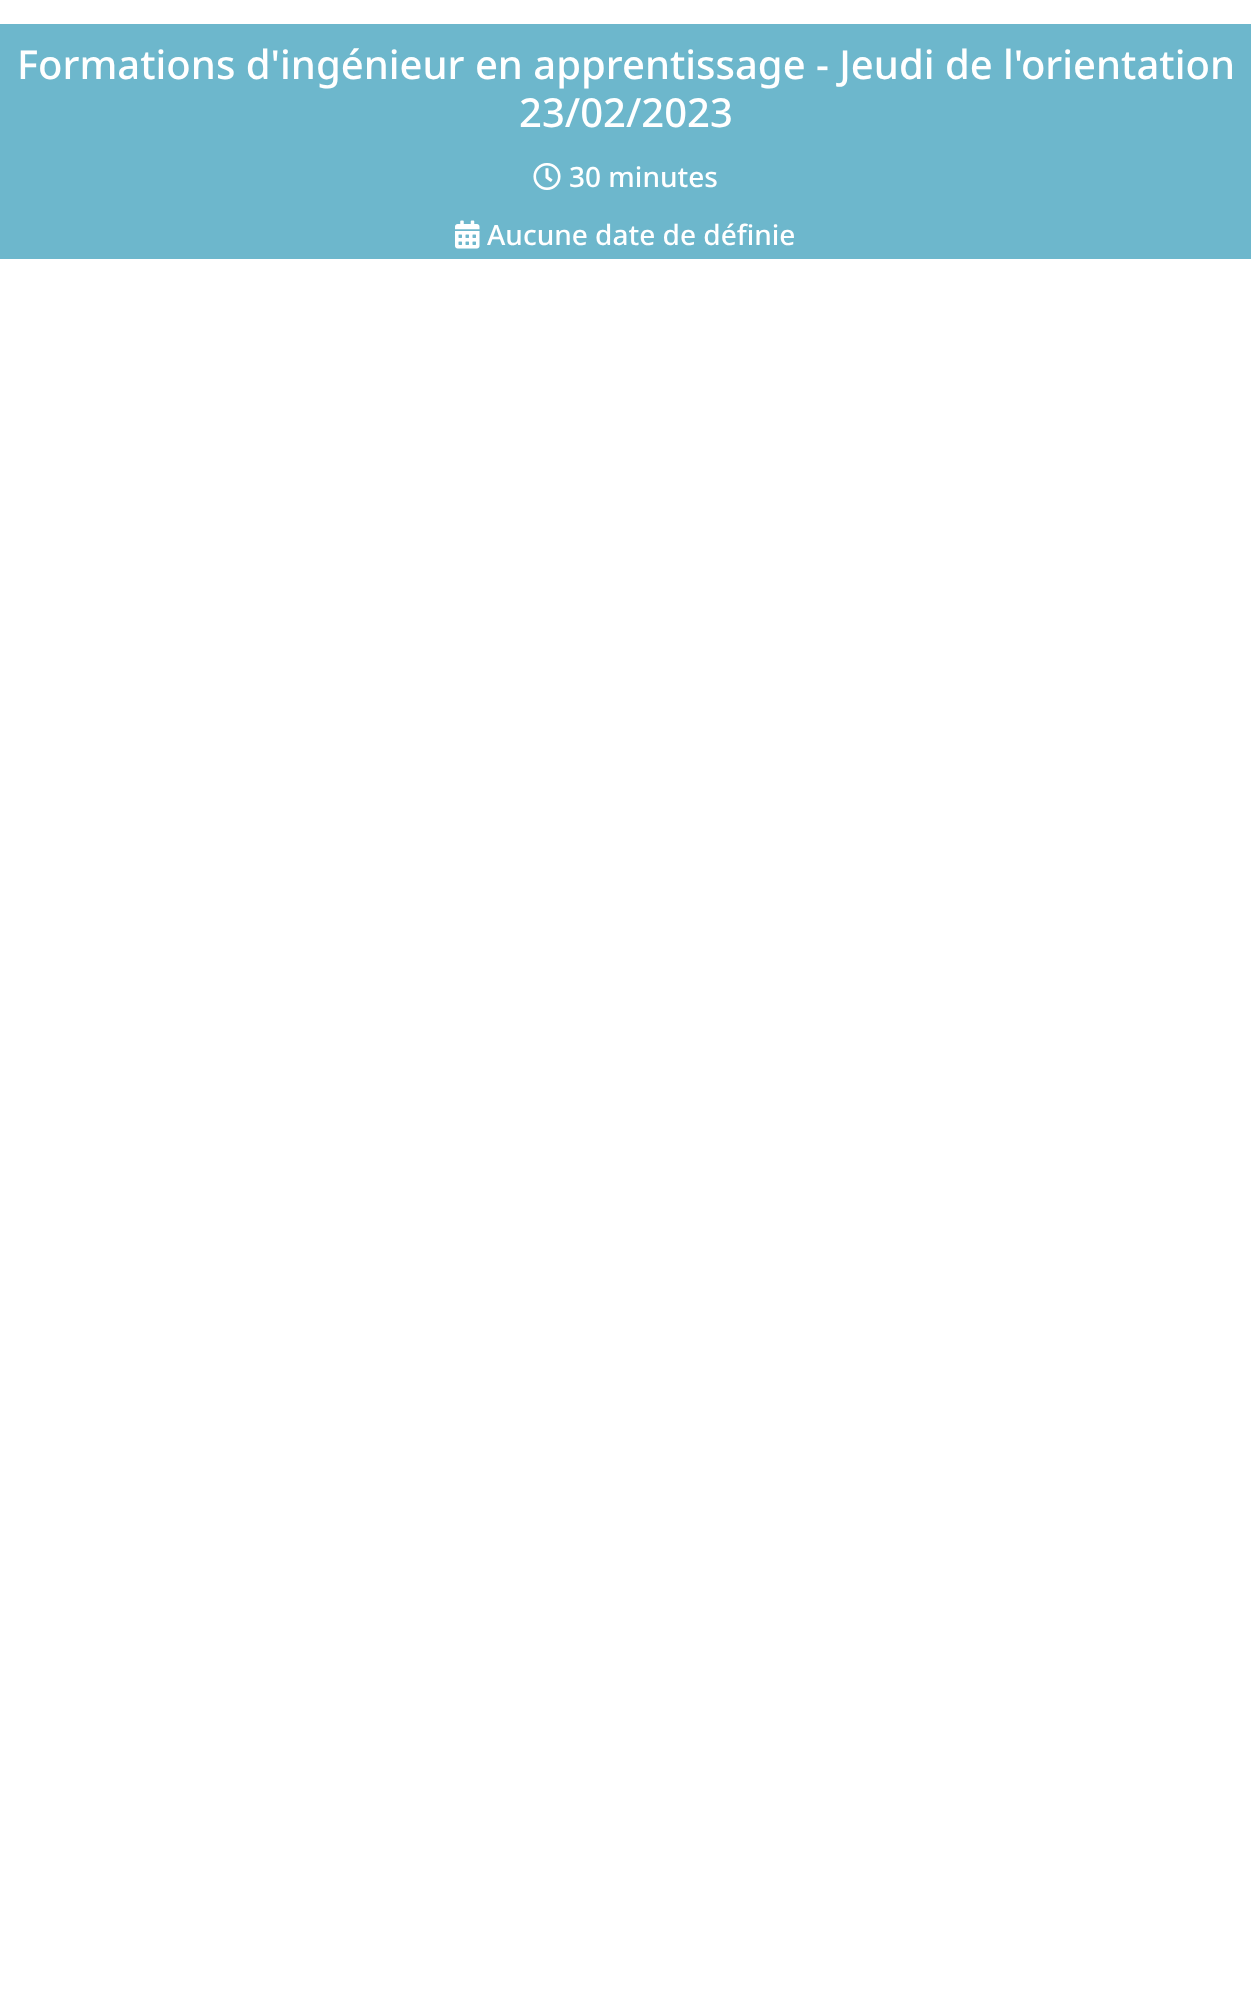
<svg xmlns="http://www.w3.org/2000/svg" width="1251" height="2003">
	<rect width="100%" height="100%" fill="#FFFFFF" />
	<rect x="0" y="24" width="1251" height="235" fill="#6DB7CC" />
	<g font-family="Noto Sans" font-size="40" font-weight="500" fill="#FFFFFF">
		<text x="17" y="79">Formations d'ingénieur en apprentissage - Jeudi de l'orientation</text>
		<text x="519" y="127">23/02/2023</text>
	</g>
	<image x="533" y="163" width="28" height="27" href="assets/img1.png" />
	<text x="569" y="187" font-family="Noto Sans" font-size="28" font-weight="500" fill="#FFFFFF">30 minutes</text>
	<image x="455" y="220" width="25" height="29" href="assets/img2.png" />
	<text x="487" y="245" font-family="Noto Sans" font-size="28" font-weight="500" fill="#FFFFFF">Aucune date de définie</text>
</svg>
